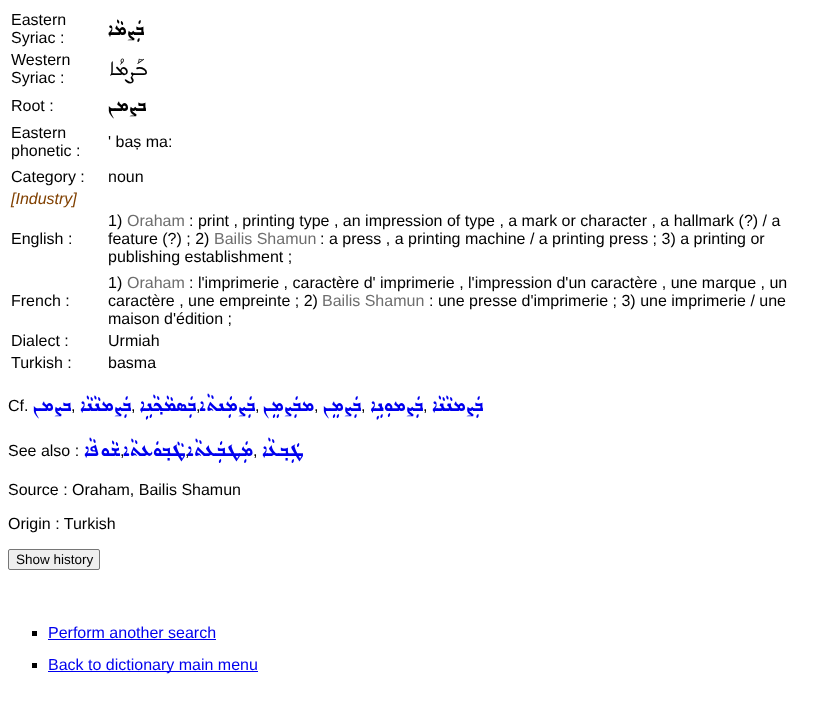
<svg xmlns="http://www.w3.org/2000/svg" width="839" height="717">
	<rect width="100%" height="100%" fill="#FFFFFF" />
	<g font-family="Liberation Sans" font-size="16" fill="#000000">
		<text x="11" y="25">Eastern</text>
		<text x="11" y="43">Syriac :</text>
	</g>
	<text x="144" y="35" font-family="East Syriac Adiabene" font-size="26" direction="rtl" fill="#000000">ܒܲܨܡܵܐ</text>
	<g font-family="Liberation Sans" font-size="16" fill="#000000">
		<text x="11" y="65">Western</text>
		<text x="11" y="83">Syriac :</text>
	</g>
	<text x="147" y="75" font-family="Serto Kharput" font-size="27" direction="rtl" fill="#000000">ܒܰܨܡܳܐ</text>
	<text x="11" y="111" font-family="Liberation Sans" font-size="16" fill="#000000">Root :</text>
	<text x="146" y="111" font-family="East Syriac Adiabene" font-size="26" direction="rtl" fill="#000000">ܒܨܡܢ</text>
	<g font-family="Liberation Sans" font-size="16" fill="#000000">
		<text x="11" y="138">Eastern</text>
		<text x="11" y="156">phonetic :</text>
		<text x="108" y="147">' baṣ ma:</text>
		<text x="11" y="182">Category :</text>
		<text x="108" y="182">noun</text>
	</g>
	<text x="11" y="204" font-family="Liberation Sans" font-size="16" font-style="italic" fill="#804000">[Industry]</text>
	<g font-family="Liberation Sans" font-size="16" fill="#000000">
		<text x="11" y="244">English :</text>
		<text x="108" y="226">1)</text>
	</g>
	<text x="127" y="226" font-family="Liberation Sans" font-size="16" fill="#6E6E6E">Oraham</text>
	<g font-family="Liberation Sans" font-size="16" fill="#000000">
		<text x="189" y="226">: print , printing type , an impression of type , a mark or character , a hallmark (?) / a</text>
		<text x="108" y="244">feature (?) ; 2)</text>
	</g>
	<text x="214" y="244" font-family="Liberation Sans" font-size="16" fill="#6E6E6E">Bailis Shamun</text>
	<g font-family="Liberation Sans" font-size="16" fill="#000000">
		<text x="320" y="244">: a press , a printing machine / a printing press ; 3) a printing or</text>
		<text x="108" y="262">publishing establishment ;</text>
		<text x="11" y="306">French :</text>
		<text x="108" y="288">1)</text>
	</g>
	<text x="127" y="288" font-family="Liberation Sans" font-size="16" fill="#6E6E6E">Oraham</text>
	<g font-family="Liberation Sans" font-size="16" fill="#000000">
		<text x="189" y="288">: l'imprimerie , caractère d' imprimerie , l'impression d'un caractère , une marque , un</text>
		<text x="108" y="306">caractère , une empreinte ; 2)</text>
	</g>
	<text x="322" y="306" font-family="Liberation Sans" font-size="16" fill="#6E6E6E">Bailis Shamun</text>
	<g font-family="Liberation Sans" font-size="16" fill="#000000">
		<text x="429" y="306">: une presse d'imprimerie ; 3) une imprimerie / une</text>
		<text x="108" y="324">maison d'édition ;</text>
		<text x="11" y="346">Dialect :</text>
		<text x="108" y="346">Urmiah</text>
		<text x="11" y="368">Turkish :</text>
		<text x="108" y="368">basma</text>
		<text x="8" y="411">Cf.</text>
	</g>
	<text x="71" y="411" font-family="East Syriac Adiabene" font-size="26" direction="rtl" fill="#0000EE">ܒܨܡܢ</text>
	<text x="71" y="411" font-family="Liberation Sans" font-size="16" fill="#000000">,</text>
	<text x="131" y="411" font-family="East Syriac Adiabene" font-size="26" direction="rtl" fill="#0000EE">ܒܲܨܡܢܵܢܵܐ</text>
	<text x="131" y="411" font-family="Liberation Sans" font-size="16" fill="#000000">,</text>
	<text x="196" y="411" font-family="East Syriac Adiabene" font-size="26" direction="rtl" fill="#0000EE">ܒܲܣܡܵܟ݂ܵܢܹܐ</text>
	<text x="196" y="411" font-family="Liberation Sans" font-size="16" fill="#000000">,</text>
	<text x="255" y="411" font-family="East Syriac Adiabene" font-size="26" direction="rtl" fill="#0000EE">ܒܲܨܡܲܢܬܵܐ</text>
	<text x="255" y="411" font-family="Liberation Sans" font-size="16" fill="#000000">,</text>
	<text x="314" y="411" font-family="East Syriac Adiabene" font-size="26" direction="rtl" fill="#0000EE">ܡܒܲܨܡܸܢ</text>
	<text x="314" y="411" font-family="Liberation Sans" font-size="16" fill="#000000">,</text>
	<text x="361" y="411" font-family="East Syriac Adiabene" font-size="26" direction="rtl" fill="#0000EE">ܒܲܨܡܸܢ</text>
	<text x="361" y="411" font-family="Liberation Sans" font-size="16" fill="#000000">,</text>
	<text x="423" y="411" font-family="East Syriac Adiabene" font-size="26" direction="rtl" fill="#0000EE">ܒܲܨܡܘܼܢܹܐ</text>
	<text x="423" y="411" font-family="Liberation Sans" font-size="16" fill="#000000">,</text>
	<text x="483" y="411" font-family="East Syriac Adiabene" font-size="26" direction="rtl" fill="#0000EE">ܒܲܨܡܢܵܢܵܐ</text>
	<text x="8" y="456" font-family="Liberation Sans" font-size="16" fill="#000000">See also :</text>
	<text x="120" y="456" font-family="East Syriac Adiabene" font-size="26" direction="rtl" fill="#0000EE">ܫܵܘܦܵܐ</text>
	<text x="120" y="456" font-family="Liberation Sans" font-size="16" fill="#000000">,</text>
	<text x="185" y="456" font-family="East Syriac Adiabene" font-size="26" direction="rtl" fill="#0000EE">ܛܵܒ݂ܘܿܥܬܵܐ</text>
	<text x="185" y="456" font-family="Liberation Sans" font-size="16" fill="#000000">,</text>
	<text x="253" y="456" font-family="East Syriac Adiabene" font-size="26" direction="rtl" fill="#0000EE">ܡܲܛܒܲܥܬܵܐ</text>
	<text x="253" y="456" font-family="Liberation Sans" font-size="16" fill="#000000">,</text>
	<text x="303" y="456" font-family="East Syriac Adiabene" font-size="26" direction="rtl" fill="#0000EE">ܛܲܒ݂ܥܵܐ</text>
	<g font-family="Liberation Sans" font-size="16" fill="#000000">
		<text x="8" y="495">Source : Oraham, Bailis Shamun</text>
		<text x="8" y="529">Origin : Turkish</text>
	</g>
	<rect x="8.5" y="549.5" width="91" height="20" rx="1.5" fill="#EFEFEF" stroke="#767676" />
	<text x="16" y="564" font-family="Liberation Sans" font-size="13.5" fill="#000000">Show history</text>
	<rect x="32" y="631" width="5" height="5" fill="#000000" />
	<text x="48" y="638" font-family="Liberation Sans" font-size="16" fill="#0000EE">Perform another search</text>
	<rect x="48" y="639" width="168" height="1" fill="#0000EE" />
	<rect x="32" y="663" width="5" height="5" fill="#000000" />
	<rect x="48" y="671" width="210" height="1" fill="#0000EE" />
	<text x="48" y="670" font-family="Liberation Sans" font-size="16" fill="#0000EE">Back to dictionary main menu</text>
</svg>
